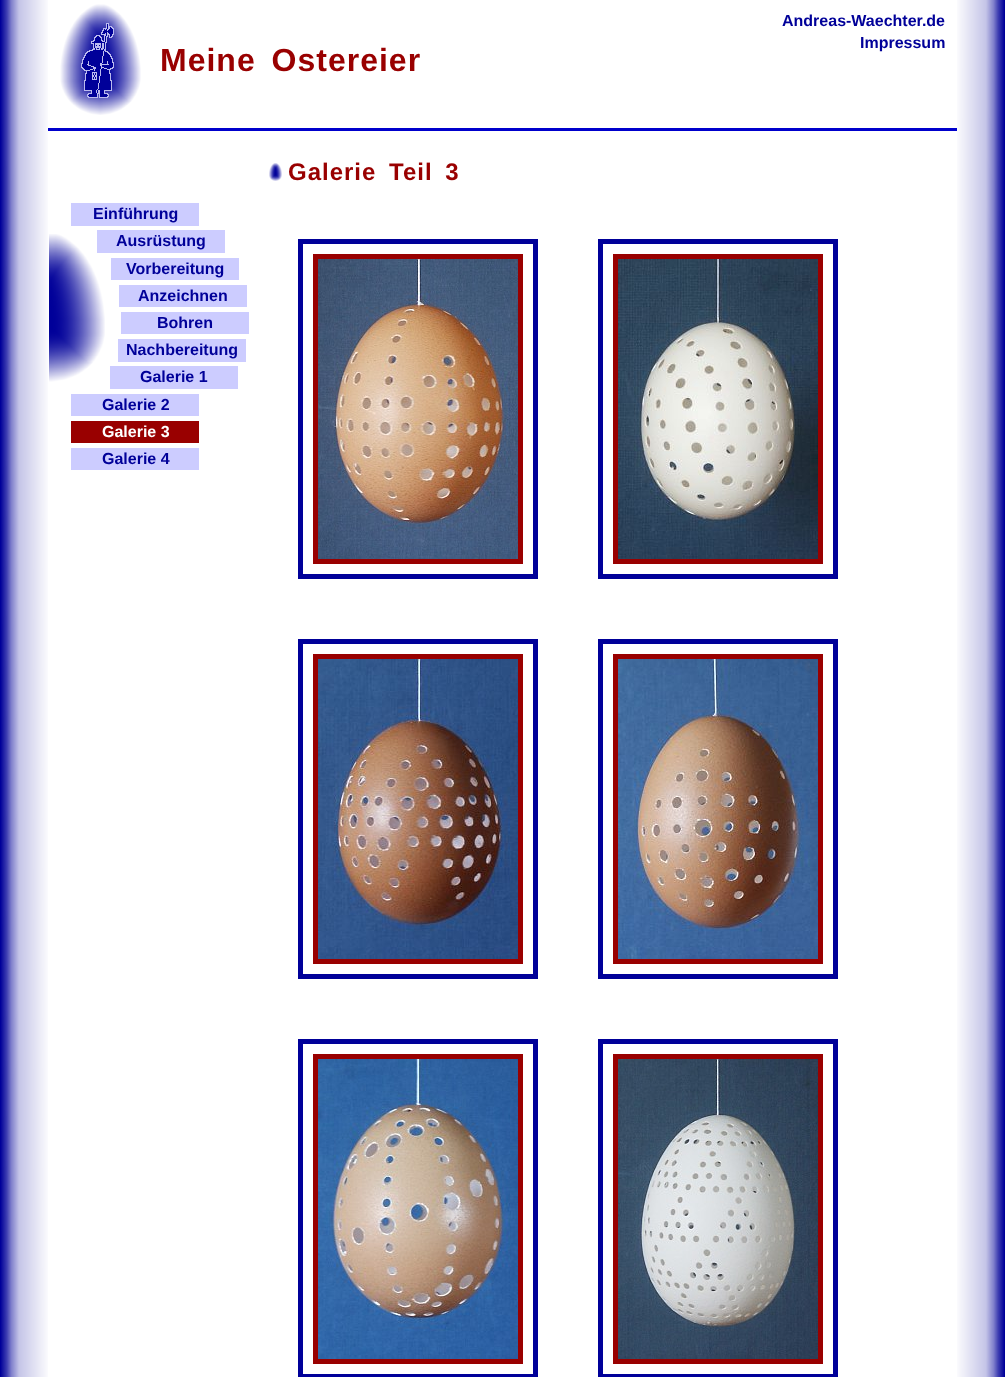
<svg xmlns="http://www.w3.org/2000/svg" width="1005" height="1377">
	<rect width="100%" height="100%" fill="#FFFFFF" />
	<image x="0" y="0" width="48" height="1377" href="assets/img1.png" />
	<image x="957" y="0" width="48" height="1377" href="assets/img2.png" />
	<g font-family="Liberation Sans" font-size="16" font-weight="700" fill="#000099">
		<text x="782" y="26">Andreas-Waechter.de</text>
		<text x="860" y="48">Impressum</text>
	</g>
	<image x="60" y="4" width="81" height="111" href="assets/img3.png" />
	<text x="160" y="71" word-spacing="6" font-family="Liberation Sans" font-size="32" font-weight="700" letter-spacing="1" fill="#990000">Meine Ostereier</text>
	<rect x="48" y="128" width="909" height="3" fill="#0000CC" />
	<image x="269" y="163" width="13" height="18" href="assets/img4.png" />
	<text x="288" y="180" word-spacing="5" font-family="Liberation Sans" font-size="24" font-weight="700" letter-spacing="1" fill="#990000">Galerie Teil 3</text>
	<rect x="300.5" y="241.5" width="235" height="335" fill="none" stroke="#000099" stroke-width="5" />
	<rect x="315.5" y="256.5" width="205" height="305" fill="none" stroke="#990000" stroke-width="5" />
	<image x="318" y="259" width="200" height="300" href="assets/img5.png" />
	<rect x="600.5" y="241.5" width="235" height="335" fill="none" stroke="#000099" stroke-width="5" />
	<rect x="615.5" y="256.5" width="205" height="305" fill="none" stroke="#990000" stroke-width="5" />
	<image x="618" y="259" width="200" height="300" href="assets/img6.png" />
	<rect x="300.5" y="641.5" width="235" height="335" fill="none" stroke="#000099" stroke-width="5" />
	<rect x="315.5" y="656.5" width="205" height="305" fill="none" stroke="#990000" stroke-width="5" />
	<image x="318" y="659" width="200" height="300" href="assets/img7.png" />
	<rect x="600.5" y="641.5" width="235" height="335" fill="none" stroke="#000099" stroke-width="5" />
	<rect x="615.5" y="656.5" width="205" height="305" fill="none" stroke="#990000" stroke-width="5" />
	<image x="618" y="659" width="200" height="300" href="assets/img8.png" />
	<rect x="300.5" y="1041.5" width="235" height="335" fill="none" stroke="#000099" stroke-width="5" />
	<rect x="315.5" y="1056.5" width="205" height="305" fill="none" stroke="#990000" stroke-width="5" />
	<image x="318" y="1059" width="200" height="300" href="assets/img9.png" />
	<rect x="600.5" y="1041.5" width="235" height="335" fill="none" stroke="#000099" stroke-width="5" />
	<rect x="615.5" y="1056.5" width="205" height="305" fill="none" stroke="#990000" stroke-width="5" />
	<image x="618" y="1059" width="200" height="300" href="assets/img10.png" />
	<image x="49" y="234" width="56" height="148" href="assets/img11.png" />
	<rect x="71" y="203" width="128" height="23" fill="#CCCCFF" />
	<text x="93" y="219" font-family="Liberation Sans" font-size="16" font-weight="700" fill="#000099">Einführung</text>
	<rect x="97" y="230" width="128" height="23" fill="#CCCCFF" />
	<text x="116" y="246" font-family="Liberation Sans" font-size="16" font-weight="700" fill="#000099">Ausrüstung</text>
	<rect x="111" y="258" width="128" height="22" fill="#CCCCFF" />
	<text x="126" y="274" font-family="Liberation Sans" font-size="16" font-weight="700" fill="#000099">Vorbereitung</text>
	<rect x="119" y="285" width="128" height="22" fill="#CCCCFF" />
	<text x="138" y="301" font-family="Liberation Sans" font-size="16" font-weight="700" fill="#000099">Anzeichnen</text>
	<rect x="121" y="312" width="128" height="22" fill="#CCCCFF" />
	<text x="157" y="328" font-family="Liberation Sans" font-size="16" font-weight="700" fill="#000099">Bohren</text>
	<rect x="118" y="339" width="128" height="23" fill="#CCCCFF" />
	<text x="126" y="355" font-family="Liberation Sans" font-size="16" font-weight="700" fill="#000099">Nachbereitung</text>
	<rect x="110" y="366" width="128" height="23" fill="#CCCCFF" />
	<text x="140" y="382" font-family="Liberation Sans" font-size="16" font-weight="700" fill="#000099">Galerie 1</text>
	<rect x="71" y="394" width="128" height="22" fill="#CCCCFF" />
	<text x="102" y="410" font-family="Liberation Sans" font-size="16" font-weight="700" fill="#000099">Galerie 2</text>
	<rect x="71" y="421" width="128" height="22" fill="#990000" />
	<text x="102" y="437" font-family="Liberation Sans" font-size="16" font-weight="700" fill="#FFFFFF">Galerie 3</text>
	<rect x="71" y="448" width="128" height="22" fill="#CCCCFF" />
	<text x="102" y="464" font-family="Liberation Sans" font-size="16" font-weight="700" fill="#000099">Galerie 4</text>
</svg>
